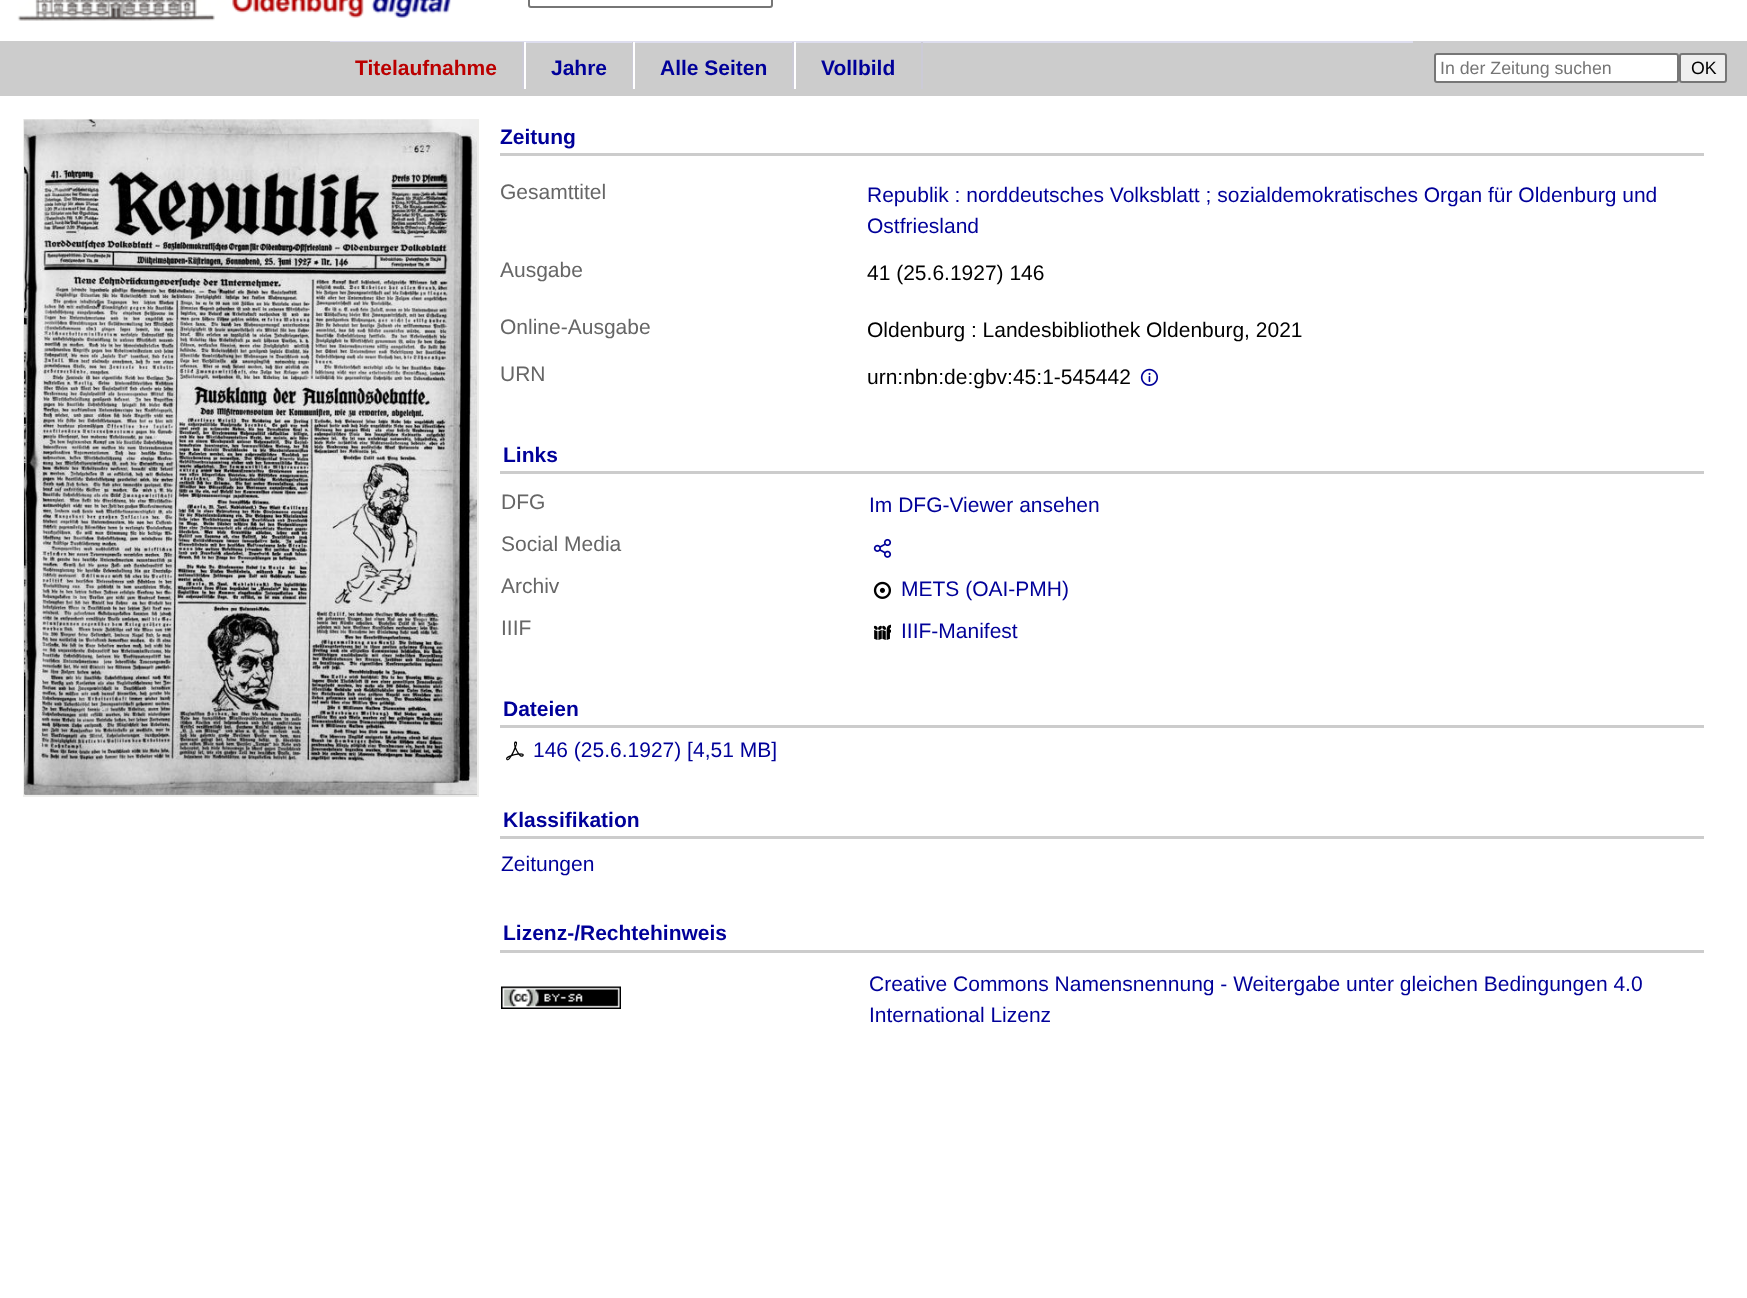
<svg xmlns="http://www.w3.org/2000/svg" width="1747" height="1298">
	<rect width="100%" height="100%" fill="#FFFFFF" />
	<image x="17" y="0" width="434" height="21" href="assets/img1.png" />
	<rect x="529" y="-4" width="243" height="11" rx="2" fill="none" stroke="#767676" stroke-width="2" />
	<rect x="0" y="41" width="1747" height="55" fill="#CCCCCC" />
	<rect x="330" y="41" width="1083" height="2" fill="#DDDDEE" />
	<rect x="330" y="42" width="192" height="1" fill="#CCCCCC" />
	<rect x="522" y="42" width="2" height="47" fill="#CCCBD7" />
	<text x="355" y="75" font-family="Liberation Sans" font-size="21" font-weight="700" fill="#BB0000">Titelaufnahme</text>
	<rect x="632" y="42" width="1" height="47" fill="#CCCBD7" />
	<rect x="524" y="42" width="2" height="47" fill="#FFFFFF" />
	<text x="551" y="75" font-family="Liberation Sans" font-size="21" font-weight="700" fill="#000099">Jahre</text>
	<rect x="792" y="42" width="2" height="47" fill="#CCCBD7" />
	<rect x="633" y="42" width="2" height="47" fill="#FFFFFF" />
	<text x="660" y="75" font-family="Liberation Sans" font-size="21" font-weight="700" fill="#000099">Alle Seiten</text>
	<rect x="921" y="42" width="2" height="47" fill="#CCCBD7" />
	<rect x="794" y="42" width="2" height="47" fill="#FFFFFF" />
	<text x="821" y="75" font-family="Liberation Sans" font-size="21" font-weight="700" fill="#000099">Vollbild</text>
	<rect x="1435" y="54" width="243" height="28" rx="2" fill="#FFFFFF" stroke="#767676" stroke-width="2" />
	<text x="1440" y="74" font-family="Liberation Sans" font-size="17.75" fill="#757575">In der Zeitung suchen</text>
	<rect x="1680" y="54" width="46" height="28" rx="2" fill="#EFEFEF" stroke="#767676" stroke-width="2" />
	<text x="1691" y="74" font-family="Liberation Sans" font-size="17.75" fill="#000000">OK</text>
	<rect x="25" y="794" width="452" height="1" fill="#AAAAAA" />
	<rect x="24" y="120" width="454" height="676" fill="none" stroke="#EEEEEC" stroke-width="2" />
	<image x="24" y="119" width="453" height="676" href="assets/img2.png" />
	<rect x="500" y="153" width="1204" height="3" fill="#CCCCCC" />
	<text x="500" y="144" font-family="Liberation Sans" font-size="21" font-weight="700" fill="#000099">Zeitung</text>
	<text x="500" y="199" font-family="Liberation Sans" font-size="21" fill="#666666">Gesamttitel</text>
	<g font-family="Liberation Sans" font-size="21" fill="#000099">
		<text x="867" y="202">Republik : norddeutsches Volksblatt ; sozialdemokratisches Organ für Oldenburg und</text>
		<text x="867" y="233">Ostfriesland</text>
	</g>
	<text x="500" y="277" font-family="Liberation Sans" font-size="21" fill="#666666">Ausgabe</text>
	<text x="867" y="280" font-family="Liberation Sans" font-size="21" fill="#000000">41 (25.6.1927) 146</text>
	<text x="500" y="334" font-family="Liberation Sans" font-size="21" fill="#666666">Online-Ausgabe</text>
	<text x="867" y="337" font-family="Liberation Sans" font-size="21" fill="#000000">Oldenburg : Landesbibliothek Oldenburg, 2021</text>
	<text x="500" y="381" font-family="Liberation Sans" font-size="21" fill="#666666">URN</text>
	<text x="867" y="384" font-family="Liberation Sans" font-size="21" fill="#000000">urn:nbn:de:gbv:45:1-545442</text>
	<image x="1140" y="368" width="18" height="18" href="assets/img3.png" />
	<rect x="500" y="471" width="1204" height="3" fill="#CCCCCC" />
	<text x="503" y="462" font-family="Liberation Sans" font-size="21" font-weight="700" fill="#000099">Links</text>
	<text x="501" y="509" font-family="Liberation Sans" font-size="21" fill="#666666">DFG</text>
	<text x="869" y="512" font-family="Liberation Sans" font-size="21" fill="#000099">Im DFG-Viewer ansehen</text>
	<text x="501" y="551" font-family="Liberation Sans" font-size="21" fill="#666666">Social Media</text>
	<image x="873" y="538" width="19" height="20" href="assets/img4.png" />
	<text x="501" y="593" font-family="Liberation Sans" font-size="21" fill="#666666">Archiv</text>
	<image x="873" y="581" width="18" height="18" href="assets/img5.png" />
	<text x="901" y="596" font-family="Liberation Sans" font-size="21" fill="#000099">METS (OAI-PMH)</text>
	<text x="501" y="635" font-family="Liberation Sans" font-size="21" fill="#666666">IIIF</text>
	<image x="873" y="624" width="18" height="16" href="assets/img6.png" />
	<text x="901" y="638" font-family="Liberation Sans" font-size="21" fill="#000099">IIIF-Manifest</text>
	<rect x="500" y="725" width="1204" height="3" fill="#CCCCCC" />
	<text x="503" y="716" font-family="Liberation Sans" font-size="21" font-weight="700" fill="#000099">Dateien</text>
	<image x="506" y="741" width="18" height="20" href="assets/img7.png" />
	<text x="533" y="757" font-family="Liberation Sans" font-size="21" fill="#000099">146 (25.6.1927) [4,51 MB]</text>
	<rect x="500" y="836" width="1204" height="3" fill="#CCCCCC" />
	<text x="503" y="827" font-family="Liberation Sans" font-size="21" font-weight="700" fill="#000099">Klassifikation</text>
	<text x="501" y="871" font-family="Liberation Sans" font-size="21" fill="#000099">Zeitungen</text>
	<rect x="500" y="950" width="1204" height="3" fill="#CCCCCC" />
	<text x="503" y="940" font-family="Liberation Sans" font-size="21" font-weight="700" fill="#000099">Lizenz-/Rechtehinweis</text>
	<image x="501" y="986" width="120" height="23" href="assets/img8.png" />
	<g font-family="Liberation Sans" font-size="21" fill="#000099">
		<text x="869" y="991">Creative Commons Namensnennung - Weitergabe unter gleichen Bedingungen 4.0</text>
		<text x="869" y="1022">International Lizenz</text>
	</g>
</svg>
